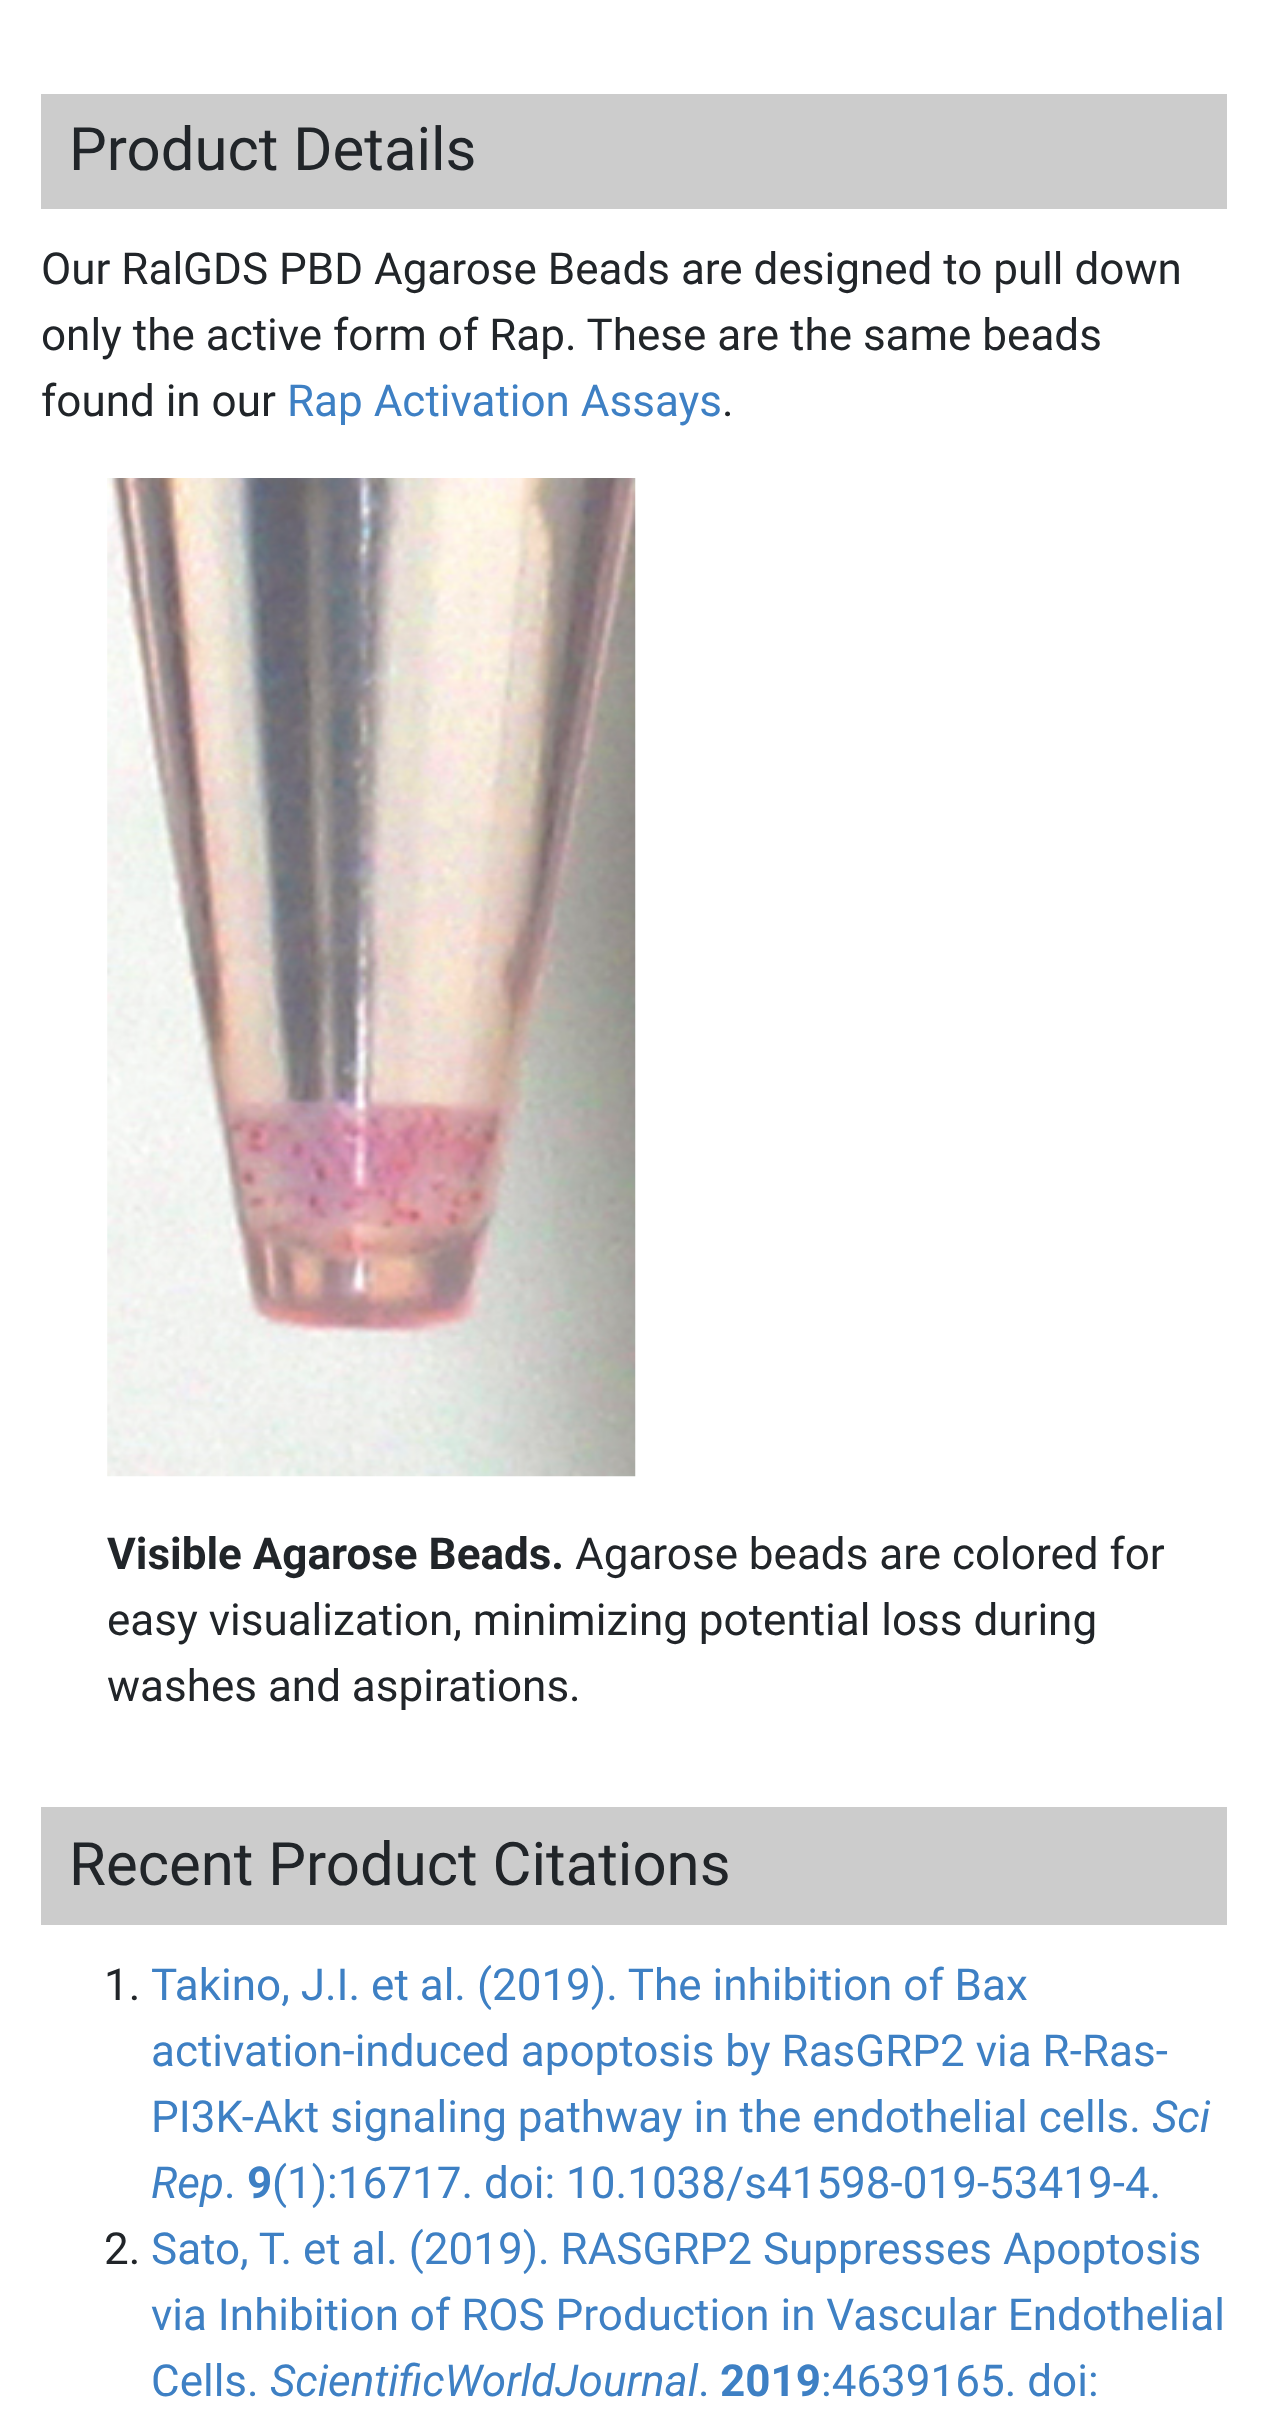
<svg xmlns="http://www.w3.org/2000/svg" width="1267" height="2414">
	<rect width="100%" height="100%" fill="#FFFFFF" />
	<rect x="41" y="94" width="1186" height="115" fill="#CCCCCC" />
	<text x="69" y="170" font-family="Roboto" font-size="59.9" fill="#212529">Product Details</text>
	<g font-family="Roboto" font-size="44" fill="#212529">
		<text x="41" y="284">Our RalGDS PBD Agarose Beads are designed to pull down</text>
		<text x="41" y="350">only the active form of Rap. These are the same beads</text>
		<text x="41" y="416">found in our</text>
	</g>
	<text x="287" y="416" font-family="Roboto" font-size="44" fill="#3E80C4">Rap Activation Assays</text>
	<text x="722" y="416" font-family="Roboto" font-size="44" fill="#212529">.</text>
	<image x="107" y="478" width="529" height="999" href="assets/img1.png" />
	<text x="107" y="1569" font-family="Roboto" font-size="44" font-weight="700" fill="#212529">Visible Agarose Beads.</text>
	<g font-family="Roboto" font-size="44" fill="#212529">
		<text x="575" y="1569">Agarose beads are colored for</text>
		<text x="107" y="1635">easy visualization, minimizing potential loss during</text>
		<text x="107" y="1701">washes and aspirations.</text>
	</g>
	<rect x="41" y="1807" width="1186" height="118" fill="#CCCCCC" />
	<text x="69" y="1885" font-family="Roboto" font-size="59.9" fill="#212529">Recent Product Citations</text>
	<text x="104" y="2000" font-family="Roboto" font-size="44" fill="#212529">1.</text>
	<g font-family="Roboto" font-size="44" fill="#3E80C4">
		<text x="151" y="2000">Takino, J.I. et al. (2019). The inhibition of Bax</text>
		<text x="151" y="2066">activation-induced apoptosis by RasGRP2 via R-Ras-</text>
		<text x="151" y="2132">PI3K-Akt signaling pathway in the endothelial cells.</text>
	</g>
	<g font-family="Roboto" font-size="44" font-style="italic" fill="#3E80C4">
		<text x="1152" y="2132">Sci</text>
		<text x="151" y="2198">Rep</text>
	</g>
	<text x="224" y="2198" font-family="Roboto" font-size="44" fill="#3E80C4">.</text>
	<text x="247" y="2198" font-family="Roboto" font-size="44" font-weight="700" fill="#3E80C4">9</text>
	<text x="272" y="2198" font-family="Roboto" font-size="44" fill="#3E80C4">(1):16717. doi: 10.1038/s41598-019-53419-4.</text>
	<text x="104" y="2264" font-family="Roboto" font-size="44" fill="#212529">2.</text>
	<g font-family="Roboto" font-size="44" fill="#3E80C4">
		<text x="151" y="2264">Sato, T. et al. (2019). RASGRP2 Suppresses Apoptosis</text>
		<text x="151" y="2330">via Inhibition of ROS Production in Vascular Endothelial</text>
		<text x="151" y="2396">Cells.</text>
	</g>
	<text x="270" y="2396" font-family="Roboto" font-size="44" font-style="italic" fill="#3E80C4">ScientificWorldJournal</text>
	<text x="698" y="2396" font-family="Roboto" font-size="44" fill="#3E80C4">.</text>
	<text x="720" y="2396" font-family="Roboto" font-size="44" font-weight="700" fill="#3E80C4">2019</text>
	<text x="821" y="2396" font-family="Roboto" font-size="44" fill="#3E80C4">:4639165. doi:</text>
</svg>
